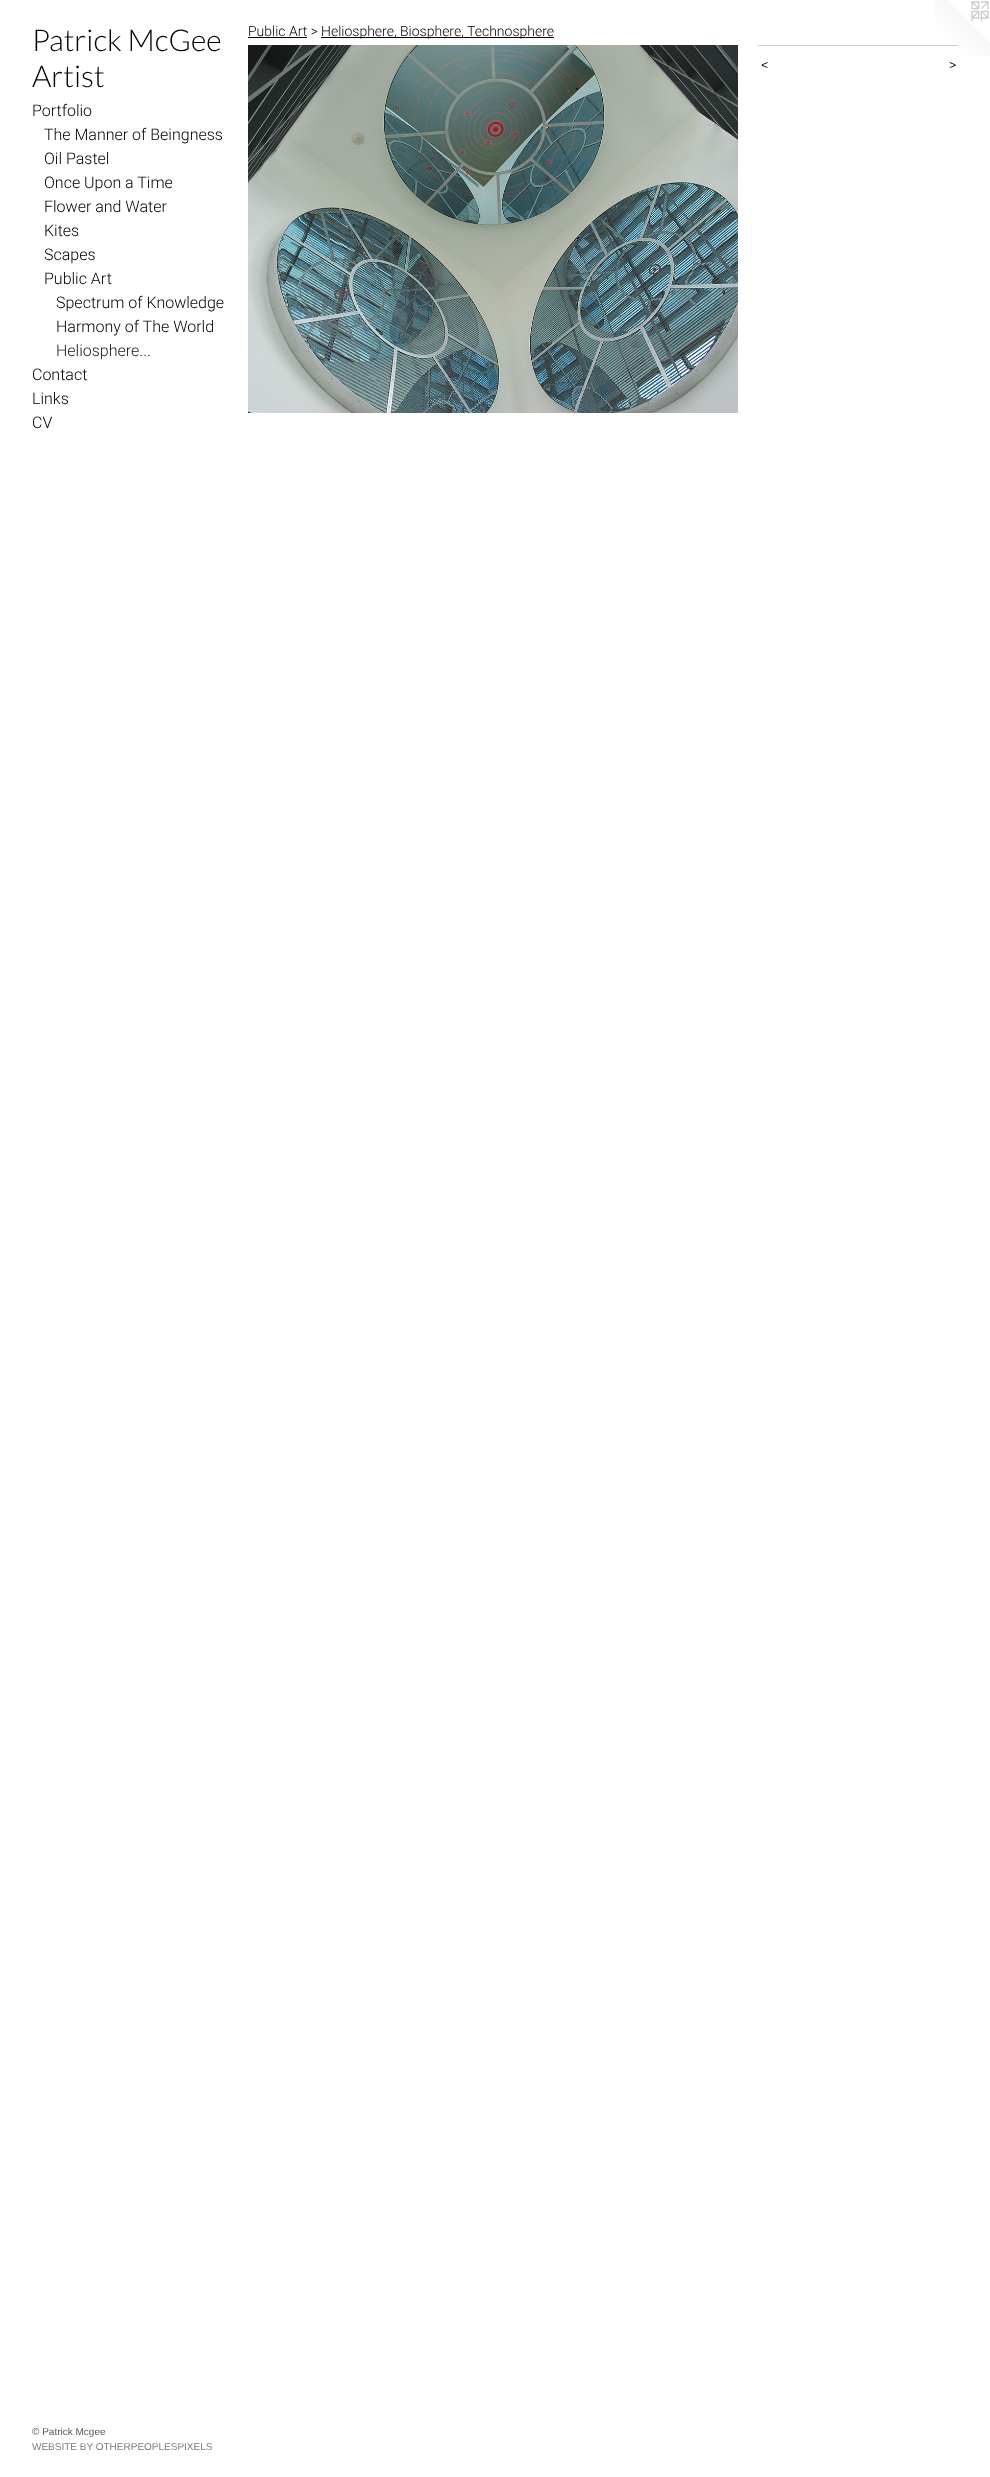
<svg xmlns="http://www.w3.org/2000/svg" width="990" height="2477">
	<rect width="100%" height="100%" fill="#FFFFFF" />
	<g font-family="Lato" font-size="30" font-weight="300" fill="#000000">
		<text x="32" y="51">Patrick McGee</text>
		<text x="32" y="87">Artist</text>
	</g>
	<g font-family="Roboto" font-size="16" font-weight="300" fill="#000000">
		<text x="32" y="116">Portfolio</text>
		<text x="44" y="140">The Manner of Beingness</text>
		<text x="44" y="164">Oil Pastel</text>
		<text x="44" y="188">Once Upon a Time</text>
		<text x="44" y="212">Flower and Water</text>
		<text x="44" y="236">Kites</text>
		<text x="44" y="260">Scapes</text>
		<text x="44" y="284">Public Art</text>
		<text x="56" y="308">Spectrum of Knowledge</text>
		<text x="56" y="332">Harmony of The World</text>
	</g>
	<text x="56" y="356" font-family="Roboto" font-size="16" font-weight="300" fill="#1A1A1A">Heliosphere...</text>
	<g font-family="Roboto" font-size="16" font-weight="300" fill="#000000">
		<text x="32" y="380">Contact</text>
		<text x="32" y="404">Links</text>
		<text x="32" y="428">CV</text>
	</g>
	<text x="32" y="2435" font-family="Liberation Sans" font-size="10" fill="#555851">© Patrick Mcgee</text>
	<text x="32" y="2450" font-family="Liberation Sans" font-size="10" fill="#7B7F76">WEBSITE BY OTHERPEOPLESPIXELS</text>
	<text x="248" y="36" font-family="Roboto" font-size="14" font-weight="300" fill="#000000">Public Art &gt;</text>
	<rect x="248" y="37" width="59" height="1" fill="#000000" />
	<rect x="321" y="37" width="233" height="1" fill="#000000" />
	<text x="321" y="36" font-family="Roboto" font-size="14" font-weight="300" fill="#000000">Heliosphere, Biosphere, Technosphere</text>
	<image x="248" y="45" width="490" height="368" href="assets/img1.png" />
	<image x="934" y="0" width="56" height="56" href="assets/img2.png" />
	<rect x="758" y="45" width="200" height="1" fill="#CCCCCC" />
	<g font-family="Liberation Sans" font-size="12" font-style="italic" letter-spacing="1" fill="#000000">
		<text x="761" y="69">&lt;</text>
		<text x="949" y="69">&gt;</text>
	</g>
</svg>
